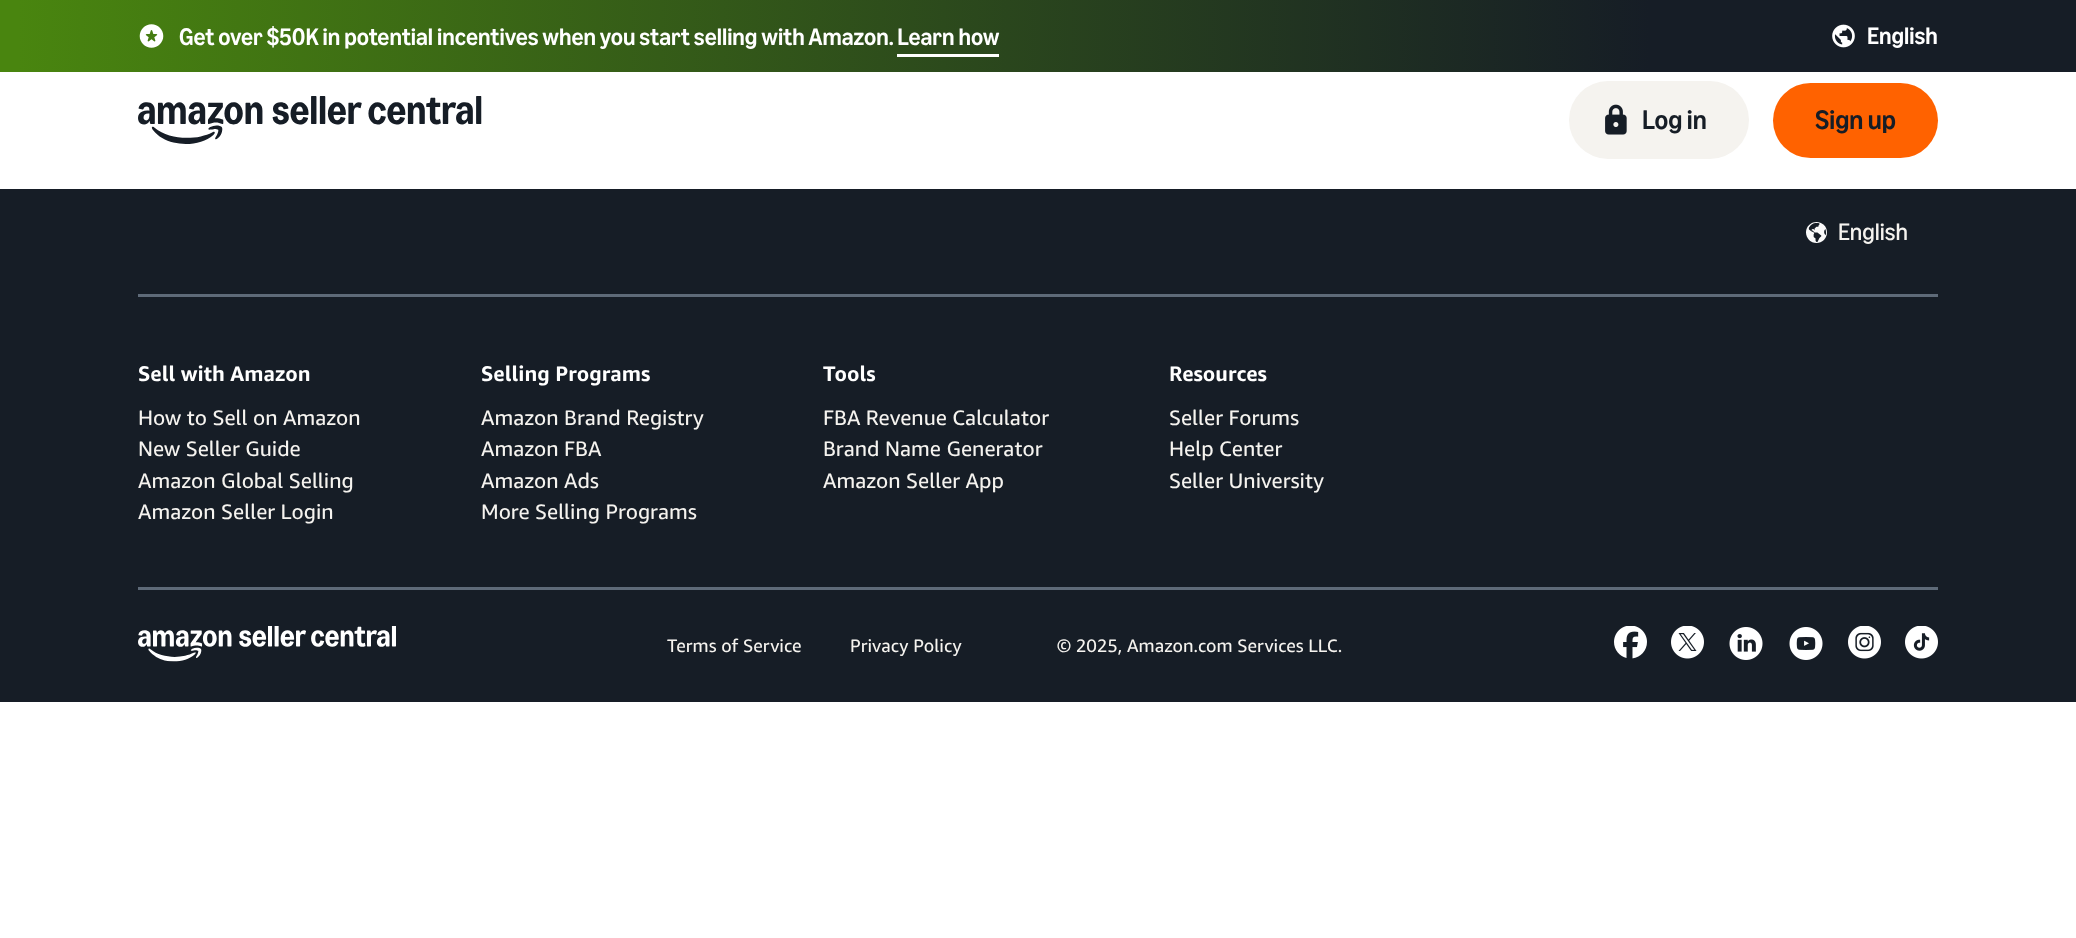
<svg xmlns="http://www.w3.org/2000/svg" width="2076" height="938">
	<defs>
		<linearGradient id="g1" gradientUnits="userSpaceOnUse" x1="18" y1="36" x2="2058" y2="36"><stop offset="0" stop-color="#49850F" /><stop offset="0.8" stop-color="#161D26" /></linearGradient>
	</defs>
	<rect width="100%" height="100%" fill="#FFFFFF" />
	<rect x="0" y="0" width="18" height="72" fill="#49850F" />
	<rect x="2058" y="0" width="18" height="72" fill="#161D26" />
	<rect x="18" y="0" width="2040" height="72" fill="url(#g1)" />
	<image x="139" y="24" width="25" height="24" href="assets/img1.png" />
	<text x="179" y="45" font-family="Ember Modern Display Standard" font-size="24" font-weight="500" fill="#FFFFFF">Get over $50K in potential incentives when you start selling with Amazon. Learn how</text>
	<rect x="897" y="54" width="102" height="3" fill="#FFFFFF" />
	<image x="1832" y="24" width="23" height="24" href="assets/img2.png" />
	<text x="1867" y="44" font-family="Ember Modern Display Standard" font-size="24" font-weight="500" fill="#FFFFFF">English</text>
	<image x="138" y="96" width="344" height="48" href="assets/img3.png" />
	<rect x="1569" y="81" width="180" height="78" rx="39" fill="#F5F3EF" />
	<image x="1605" y="104" width="22" height="31" href="assets/img4.png" />
	<text x="1642" y="129" font-family="Ember Modern Display Standard" font-size="27" font-weight="500" fill="#161D26">Log in</text>
	<rect x="1773" y="83" width="165" height="75" rx="37.5" fill="#FF6200" />
	<text x="1815" y="129" font-family="Ember Modern Display Standard" font-size="27" font-weight="500" fill="#161D26">Sign up</text>
	<rect x="0" y="189" width="2076" height="513" fill="#161D26" />
	<image x="1806" y="222" width="21" height="21" href="assets/img5.png" />
	<text x="1838" y="240" font-family="Ember Modern Display Standard" font-size="24" fill="#F5F3EF">English</text>
	<rect x="138" y="294" width="1800" height="3" fill="#5E6A78" />
	<rect x="138" y="587" width="1800" height="3" fill="#5E6A78" />
	<text x="138" y="381" font-family="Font" font-size="21" font-weight="700" fill="#FFFFFF">Sell with Amazon</text>
	<g font-family="Font" font-size="21" fill="#F5F3EF">
		<text x="138" y="425">How to Sell on Amazon</text>
		<text x="138" y="456">New Seller Guide</text>
		<text x="138" y="488">Amazon Global Selling</text>
		<text x="138" y="519">Amazon Seller Login</text>
	</g>
	<text x="481" y="381" font-family="Font" font-size="21" font-weight="700" fill="#FFFFFF">Selling Programs</text>
	<g font-family="Font" font-size="21" fill="#F5F3EF">
		<text x="481" y="425">Amazon Brand Registry</text>
		<text x="481" y="456">Amazon FBA</text>
		<text x="481" y="488">Amazon Ads</text>
		<text x="481" y="519">More Selling Programs</text>
	</g>
	<text x="823" y="381" font-family="Font" font-size="21" font-weight="700" fill="#FFFFFF">Tools</text>
	<g font-family="Font" font-size="21" fill="#F5F3EF">
		<text x="823" y="425">FBA Revenue Calculator</text>
		<text x="823" y="456">Brand Name Generator</text>
		<text x="823" y="488">Amazon Seller App</text>
	</g>
	<text x="1169" y="381" font-family="Font" font-size="21" font-weight="700" fill="#FFFFFF">Resources</text>
	<g font-family="Font" font-size="21" fill="#F5F3EF">
		<text x="1169" y="425">Seller Forums</text>
		<text x="1169" y="456">Help Center</text>
		<text x="1169" y="488">Seller University</text>
	</g>
	<image x="138" y="626" width="258" height="36" href="assets/img6.png" />
	<g font-family="Font" font-size="18" fill="#F5F3EF">
		<text x="667" y="652">Terms of Service</text>
		<text x="850" y="652">Privacy Policy</text>
		<text x="1057" y="652">© 2025, Amazon.com Services LLC.</text>
	</g>
	<image x="1614" y="626" width="33" height="33" href="assets/img7.png" />
	<image x="1671" y="626" width="33" height="33" href="assets/img8.png" />
	<image x="1729" y="627" width="34" height="33" href="assets/img9.png" />
	<image x="1789" y="627" width="34" height="33" href="assets/img10.png" />
	<image x="1848" y="626" width="33" height="33" href="assets/img11.png" />
	<image x="1905" y="626" width="33" height="33" href="assets/img12.png" />
</svg>
